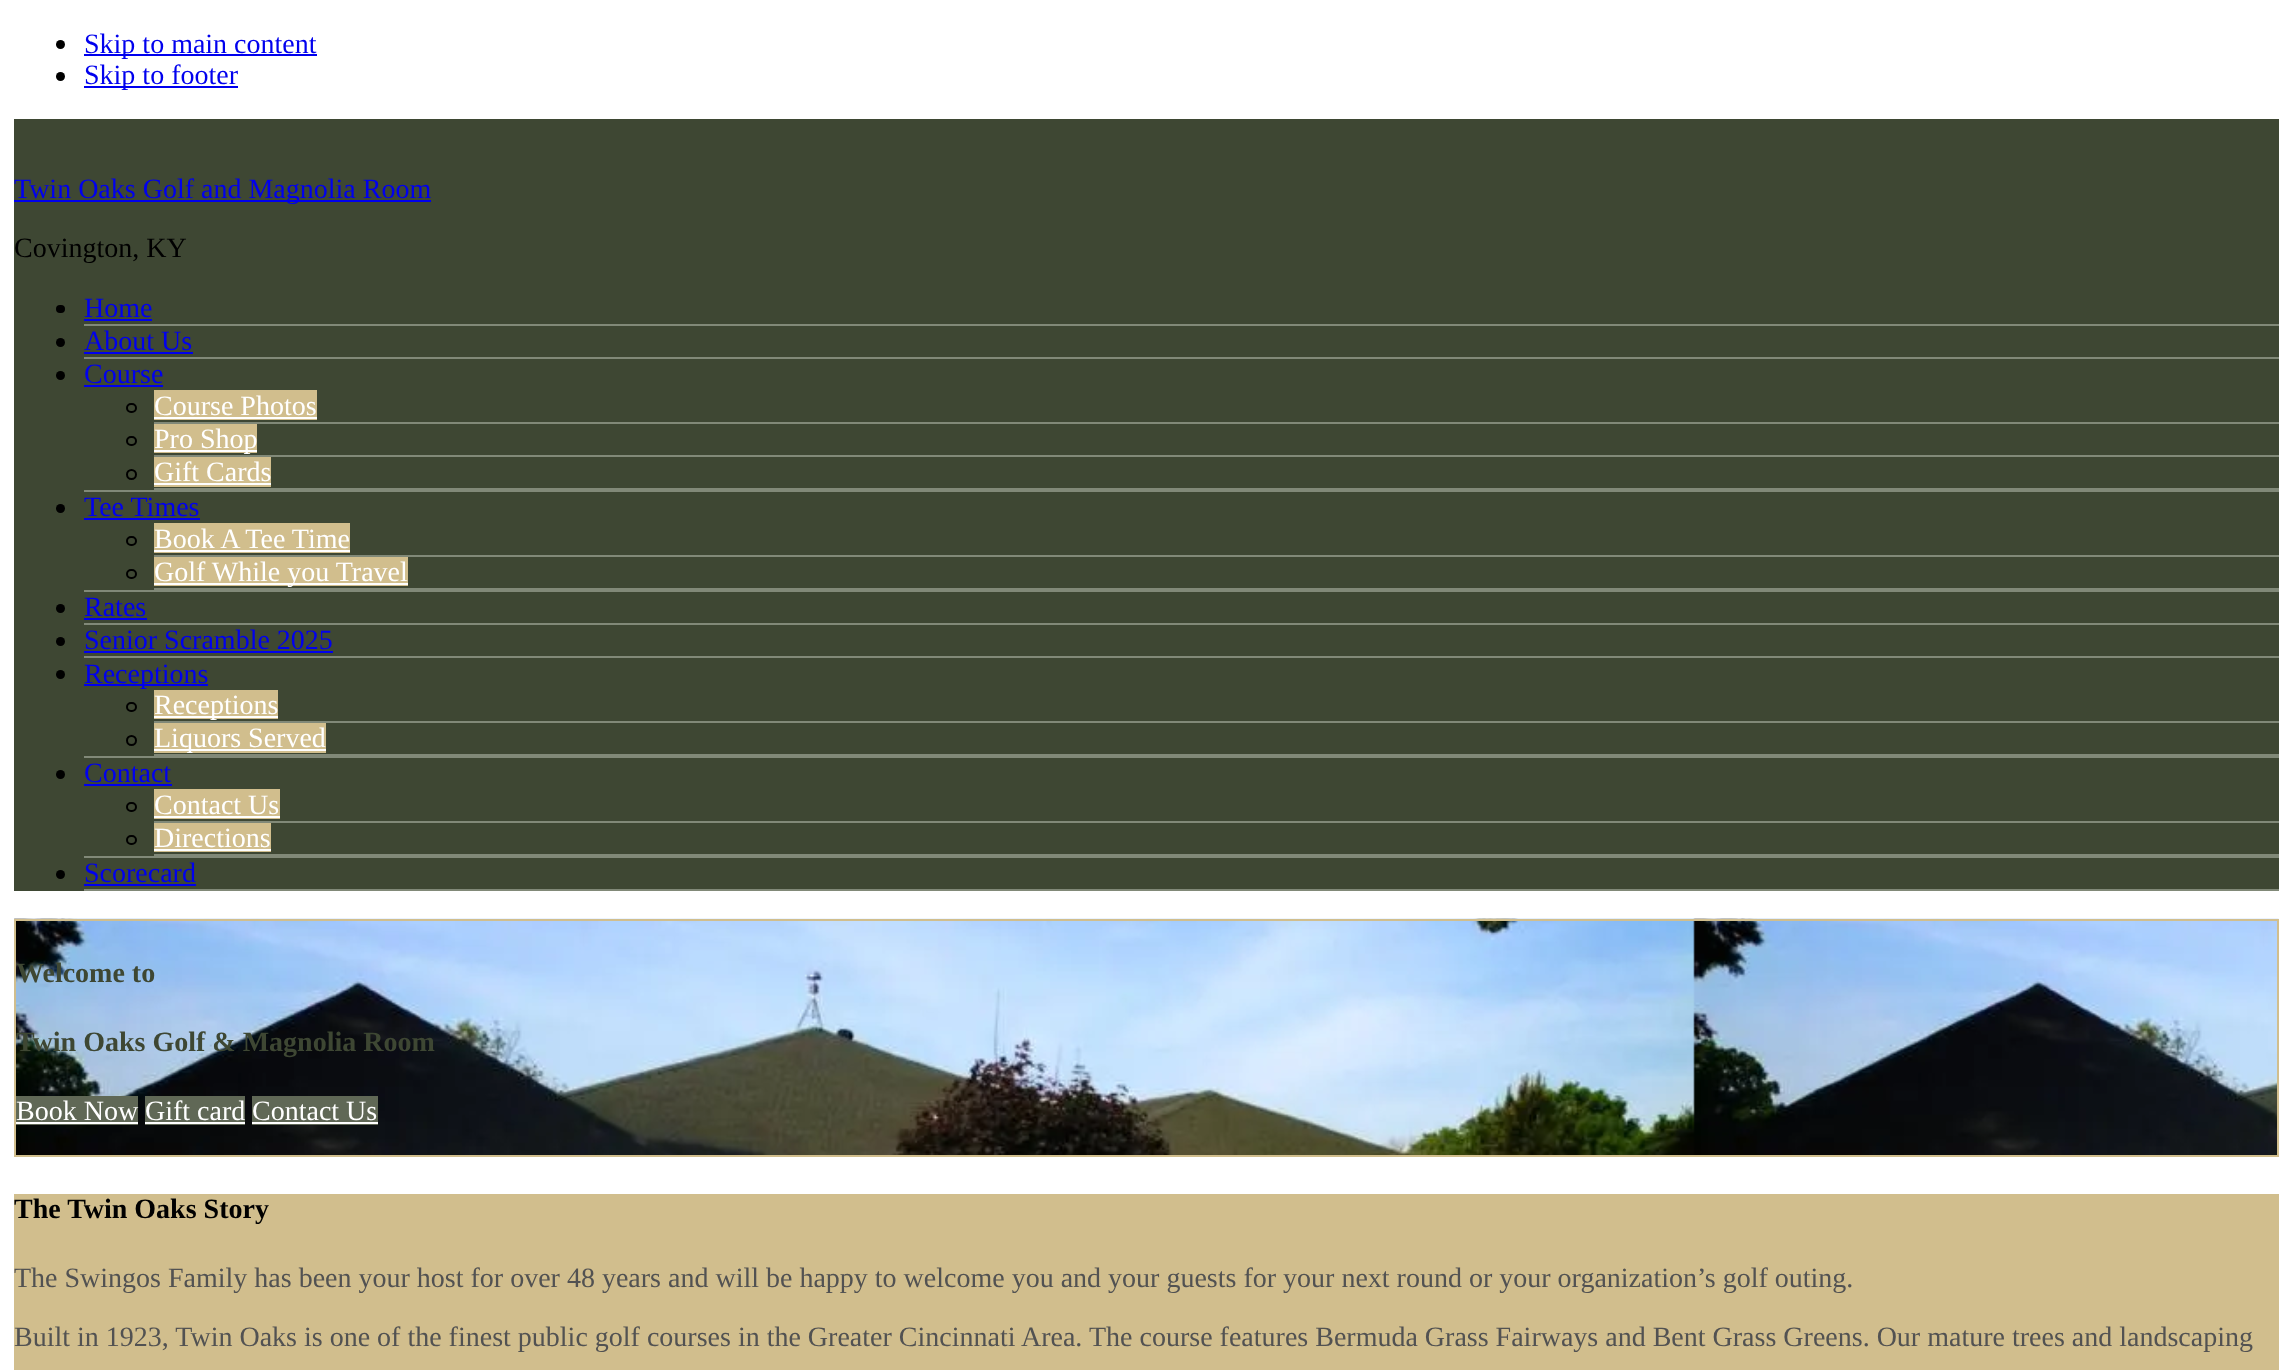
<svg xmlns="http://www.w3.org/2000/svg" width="2291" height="1370">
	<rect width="100%" height="100%" fill="#FFFFFF" />
	<circle cx="60.5" cy="44.5" r="4.5" fill="#000000" />
	<rect x="84" y="54" width="233" height="2" fill="#0000EE" />
	<text x="84" y="53" font-family="Liberation Serif" font-size="28" fill="#0000EE">Skip to main content</text>
	<circle cx="60.5" cy="76.5" r="4.5" fill="#000000" />
	<rect x="84" y="86" width="154" height="2" fill="#0000EE" />
	<text x="84" y="84" font-family="Liberation Serif" font-size="28" fill="#0000EE">Skip to footer</text>
	<rect x="14" y="119" width="2265" height="772" fill="#3E4733" />
	<rect x="14" y="200" width="417" height="2" fill="#0000EE" />
	<text x="14" y="198" font-family="Liberation Serif" font-size="28" fill="#0000EE">Twin Oaks Golf and Magnolia Room</text>
	<text x="14" y="257" font-family="Liberation Serif" font-size="28" fill="#000000">Covington, KY</text>
	<rect x="84" y="324" width="2195" height="2" fill="#818978" />
	<rect x="56" y="305" width="9" height="8" rx="4" fill="#000000" />
	<text x="84" y="317" font-family="Liberation Serif" font-size="28" fill="#0000EE">Home</text>
	<rect x="84" y="319" width="68" height="2" fill="#0000EE" />
	<rect x="84" y="357" width="2195" height="2" fill="#818978" />
	<circle cx="60.5" cy="342.5" r="4.5" fill="#000000" />
	<text x="84" y="350" font-family="Liberation Serif" font-size="28" fill="#0000EE">About Us</text>
	<rect x="84" y="352" width="109" height="2" fill="#0000EE" />
	<rect x="84" y="490" width="2195" height="2" fill="#818978" />
	<circle cx="60.5" cy="375.5" r="4.5" fill="#000000" />
	<text x="84" y="383" font-family="Liberation Serif" font-size="28" fill="#0000EE">Course</text>
	<rect x="84" y="385" width="79" height="2" fill="#0000EE" />
	<rect x="154" y="422" width="2125" height="2" fill="#818978" />
	<rect x="127" y="404" width="9" height="8" rx="4" fill="none" stroke="#000000" stroke-width="2" />
	<rect x="154" y="390" width="163" height="30" fill="#D1BE8D" />
	<text x="154" y="415" font-family="Liberation Serif" font-size="28" fill="#FFFFFF">Course Photos</text>
	<rect x="154" y="417" width="163" height="2" fill="#FFFFFF" />
	<rect x="154" y="455" width="2125" height="2" fill="#818978" />
	<rect x="127" y="437" width="9" height="8" rx="4" fill="none" stroke="#000000" stroke-width="2" />
	<rect x="154" y="424" width="103" height="29" fill="#D1BE8D" />
	<rect x="154" y="450" width="103" height="2" fill="#FFFFFF" />
	<text x="154" y="448" font-family="Liberation Serif" font-size="28" fill="#FFFFFF">Pro Shop</text>
	<rect x="154" y="488" width="2125" height="2" fill="#818978" />
	<circle cx="131.5" cy="474.5" r="4.5" fill="none" stroke="#000000" stroke-width="2" />
	<rect x="154" y="457" width="117" height="30" fill="#D1BE8D" />
	<text x="154" y="481" font-family="Liberation Serif" font-size="28" fill="#FFFFFF">Gift Cards</text>
	<rect x="154" y="483" width="117" height="2" fill="#FFFFFF" />
	<rect x="84" y="590" width="2195" height="2" fill="#818978" />
	<circle cx="60.5" cy="508.5" r="4.5" fill="#000000" />
	<text x="84" y="516" font-family="Liberation Serif" font-size="28" fill="#0000EE">Tee Times</text>
	<rect x="84" y="518" width="116" height="2" fill="#0000EE" />
	<rect x="154" y="555" width="2125" height="2" fill="#818978" />
	<rect x="127" y="537" width="9" height="8" rx="4" fill="none" stroke="#000000" stroke-width="2" />
	<rect x="154" y="523" width="196" height="30" fill="#D1BE8D" />
	<text x="154" y="548" font-family="Liberation Serif" font-size="28" fill="#FFFFFF">Book A Tee Time</text>
	<rect x="154" y="550" width="196" height="2" fill="#FFFFFF" />
	<rect x="154" y="588" width="2125" height="2" fill="#818978" />
	<rect x="127" y="570" width="9" height="8" rx="4" fill="none" stroke="#000000" stroke-width="2" />
	<rect x="154" y="557" width="254" height="29" fill="#D1BE8D" />
	<rect x="154" y="583" width="254" height="2" fill="#FFFFFF" />
	<text x="154" y="581" font-family="Liberation Serif" font-size="28" fill="#FFFFFF">Golf While you Travel</text>
	<rect x="84" y="623" width="2195" height="2" fill="#818978" />
	<circle cx="60.5" cy="608.5" r="4.5" fill="#000000" />
	<text x="84" y="616" font-family="Liberation Serif" font-size="28" fill="#0000EE">Rates</text>
	<rect x="84" y="618" width="63" height="2" fill="#0000EE" />
	<rect x="84" y="656" width="2195" height="2" fill="#818978" />
	<circle cx="60.5" cy="641.5" r="4.5" fill="#000000" />
	<text x="84" y="649" font-family="Liberation Serif" font-size="28" fill="#0000EE">Senior Scramble 2025</text>
	<rect x="84" y="651" width="249" height="2" fill="#0000EE" />
	<rect x="84" y="756" width="2195" height="2" fill="#818978" />
	<circle cx="60.5" cy="674.5" r="4.5" fill="#000000" />
	<rect x="84" y="684" width="124" height="2" fill="#0000EE" />
	<text x="84" y="683" font-family="Liberation Serif" font-size="28" fill="#0000EE">Receptions</text>
	<rect x="154" y="721" width="2125" height="2" fill="#818978" />
	<rect x="127" y="703" width="9" height="8" rx="4" fill="none" stroke="#000000" stroke-width="2" />
	<rect x="154" y="690" width="124" height="29" fill="#D1BE8D" />
	<rect x="154" y="716" width="124" height="2" fill="#FFFFFF" />
	<text x="154" y="714" font-family="Liberation Serif" font-size="28" fill="#FFFFFF">Receptions</text>
	<rect x="154" y="754" width="2125" height="2" fill="#818978" />
	<circle cx="131.5" cy="740.5" r="4.5" fill="none" stroke="#000000" stroke-width="2" />
	<rect x="154" y="723" width="172" height="30" fill="#D1BE8D" />
	<rect x="154" y="749" width="172" height="2" fill="#FFFFFF" />
	<text x="154" y="747" font-family="Liberation Serif" font-size="28" fill="#FFFFFF">Liquors Served</text>
	<rect x="84" y="856" width="2195" height="2" fill="#818978" />
	<circle cx="60.5" cy="774.5" r="4.5" fill="#000000" />
	<text x="84" y="782" font-family="Liberation Serif" font-size="28" fill="#0000EE">Contact</text>
	<rect x="84" y="784" width="88" height="2" fill="#0000EE" />
	<rect x="154" y="821" width="2125" height="2" fill="#818978" />
	<rect x="127" y="803" width="9" height="8" rx="4" fill="none" stroke="#000000" stroke-width="2" />
	<rect x="154" y="789" width="126" height="30" fill="#D1BE8D" />
	<text x="154" y="814" font-family="Liberation Serif" font-size="28" fill="#FFFFFF">Contact Us</text>
	<rect x="154" y="816" width="126" height="2" fill="#FFFFFF" />
	<rect x="154" y="854" width="2125" height="2" fill="#818978" />
	<rect x="127" y="836" width="9" height="8" rx="4" fill="none" stroke="#000000" stroke-width="2" />
	<rect x="154" y="823" width="117" height="29" fill="#D1BE8D" />
	<text x="154" y="847" font-family="Liberation Serif" font-size="28" fill="#FFFFFF">Directions</text>
	<rect x="154" y="849" width="117" height="2" fill="#FFFFFF" />
	<rect x="84" y="889" width="2195" height="2" fill="#818978" />
	<circle cx="60.5" cy="874.5" r="4.5" fill="#000000" />
	<text x="84" y="882" font-family="Liberation Serif" font-size="28" fill="#0000EE">Scorecard</text>
	<rect x="84" y="884" width="112" height="2" fill="#0000EE" />
	<image x="14" y="918" width="2265" height="237" href="assets/img1.png" />
	<rect x="15" y="920" width="2263" height="236" fill="none" stroke="#D1BE8D" stroke-width="2" />
	<g font-family="Liberation Serif" font-size="28" font-weight="700" fill="#3E4733">
		<text x="16" y="982">Welcome to</text>
		<text x="16" y="1051">Twin Oaks Golf &amp; Magnolia Room</text>
	</g>
	<rect x="16" y="1096" width="122" height="29" fill="#606856" />
	<text x="16" y="1120" font-family="Liberation Serif" font-size="28" fill="#FFFFFF">Book Now</text>
	<rect x="16" y="1122" width="122" height="2" fill="#FFFFFF" />
	<rect x="145" y="1096" width="100" height="29" fill="#606856" />
	<text x="145" y="1120" font-family="Liberation Serif" font-size="28" fill="#FFFFFF">Gift card</text>
	<rect x="145" y="1122" width="100" height="2" fill="#FFFFFF" />
	<rect x="252" y="1096" width="126" height="29" fill="#606856" />
	<text x="252" y="1120" font-family="Liberation Serif" font-size="28" fill="#FFFFFF">Contact Us</text>
	<rect x="252" y="1122" width="126" height="2" fill="#FFFFFF" />
	<rect x="14" y="1194" width="2265" height="176" fill="#D1BE8D" />
	<text x="14" y="1218" font-family="Liberation Serif" font-size="28" font-weight="700" fill="#000000">The Twin Oaks Story</text>
	<g font-family="Liberation Serif" font-size="28" fill="#525252">
		<text x="14" y="1287">The Swingos Family has been your host for over 48 years and will be happy to welcome you and your guests for your next round or your organization’s golf outing.</text>
		<text x="14" y="1346">Built in 1923, Twin Oaks is one of the finest public golf courses in the Greater Cincinnati Area.</text>
		<text x="1089" y="1346">The course features Bermuda Grass Fairways and Bent Grass Greens. Our mature trees and landscaping</text>
	</g>
</svg>
